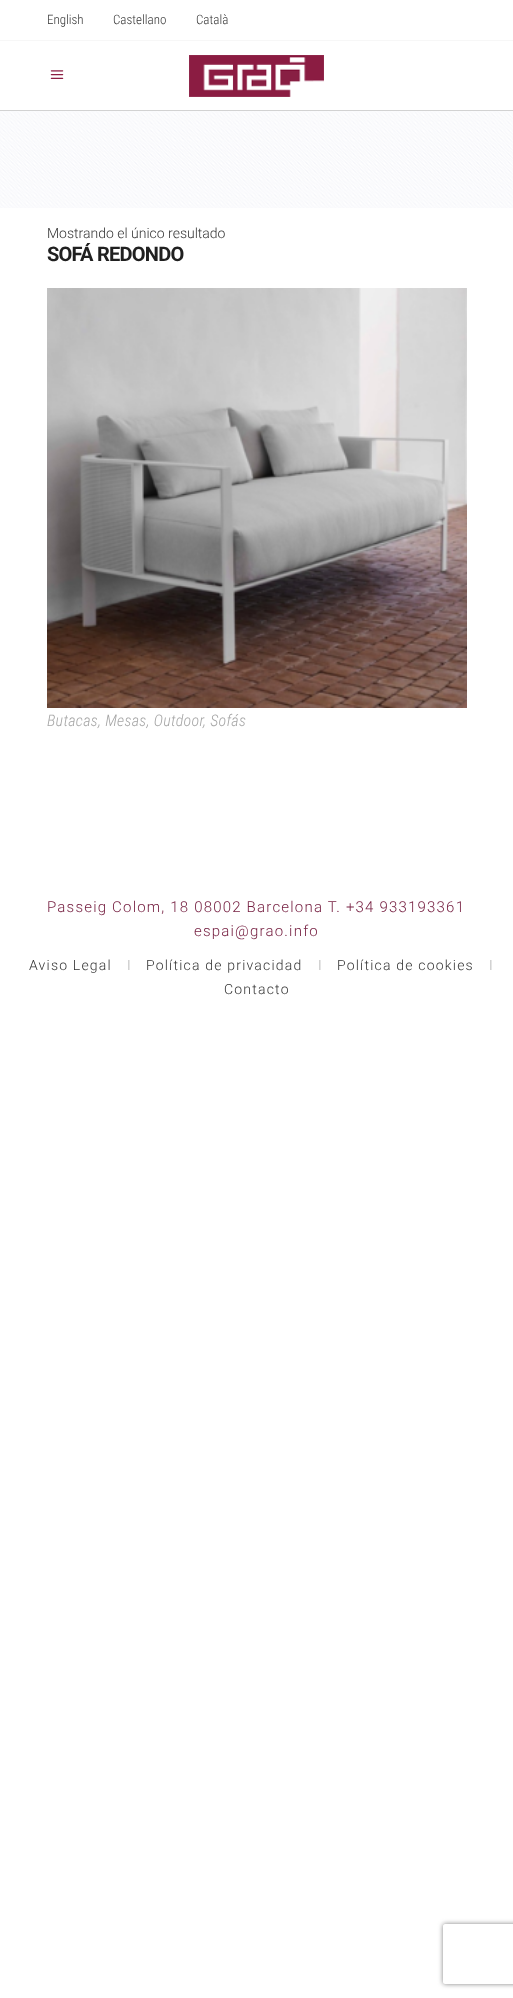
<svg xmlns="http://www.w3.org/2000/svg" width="513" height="1998">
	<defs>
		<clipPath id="clip1"><path d="M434 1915H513V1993H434ZM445 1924H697C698 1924 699 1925 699 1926V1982C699 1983 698 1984 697 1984H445C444 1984 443 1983 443 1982V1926C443 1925 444 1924 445 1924Z" clip-rule="evenodd" /></clipPath>
	</defs>
	<rect width="100%" height="100%" fill="#FFFFFF" />
	<rect x="0" y="40" width="513" height="1" fill="#F7F7F7" />
	<g font-family="Roboto Condensed" font-size="13" font-weight="300" fill="#333333">
		<text x="47" y="24">English</text>
		<text x="113" y="24">Castellano</text>
		<text x="196" y="24">Català</text>
	</g>
	<rect x="0" y="110" width="513" height="1" fill="#D2D2D2" />
	<image x="50" y="70" width="14" height="9" href="assets/img1.png" />
	<image x="189" y="55" width="135" height="42" href="assets/img2.png" />
	<text x="47" y="238" font-family="Roboto" font-size="14" font-weight="300" fill="#333333">Mostrando el único resultado</text>
	<image x="47" y="288" width="420" height="420" href="assets/img3.png" />
	<g font-family="Roboto Condensed" font-size="16" font-weight="300" font-style="italic" letter-spacing="0.3" fill="#A6A6A6">
		<text x="47" y="726">Butacas, Mesas, Outdoor</text>
		<text x="203" y="726">, Sofás</text>
	</g>
	<image x="0" y="111" width="513" height="97" href="assets/img4.png" />
	<text x="47" y="261" font-family="Roboto" font-size="20" font-weight="700" letter-spacing="-0.75" fill="#202020">SOFÁ REDONDO</text>
	<g font-family="Roboto" font-size="15" font-weight="300" letter-spacing="1.2" fill="#772243">
		<text x="47" y="912">Passeig Colom, 18 08002 Barcelona T. +34 933193361</text>
		<text x="194" y="936">espai@grao.info</text>
	</g>
	<text x="29" y="970" font-family="Roboto" font-size="14" font-weight="300" letter-spacing="1.2" fill="#333333">Aviso Legal</text>
	<text x="127" y="970" font-family="Roboto" font-size="14" font-weight="300" letter-spacing="1.2" fill="#B1B2B2">I</text>
	<text x="146" y="970" font-family="Roboto" font-size="14" font-weight="300" letter-spacing="1.2" fill="#333333">Política de privacidad</text>
	<text x="318" y="970" font-family="Roboto" font-size="14" font-weight="300" letter-spacing="1.2" fill="#B1B2B2">I</text>
	<text x="337" y="970" font-family="Roboto" font-size="14" font-weight="300" letter-spacing="1.2" fill="#333333">Política de cookies</text>
	<text x="489" y="970" font-family="Roboto" font-size="14" font-weight="300" letter-spacing="1.2" fill="#B1B2B2">I</text>
	<text x="224" y="994" font-family="Roboto" font-size="14" font-weight="300" letter-spacing="1.2" fill="#333333">Contacto</text>
	<g clip-path="url(#clip1)">
		<rect x="443" y="1924" width="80" height="60" rx="2" fill="#808080" filter="blur(2.5px)" />
	</g>
</svg>
